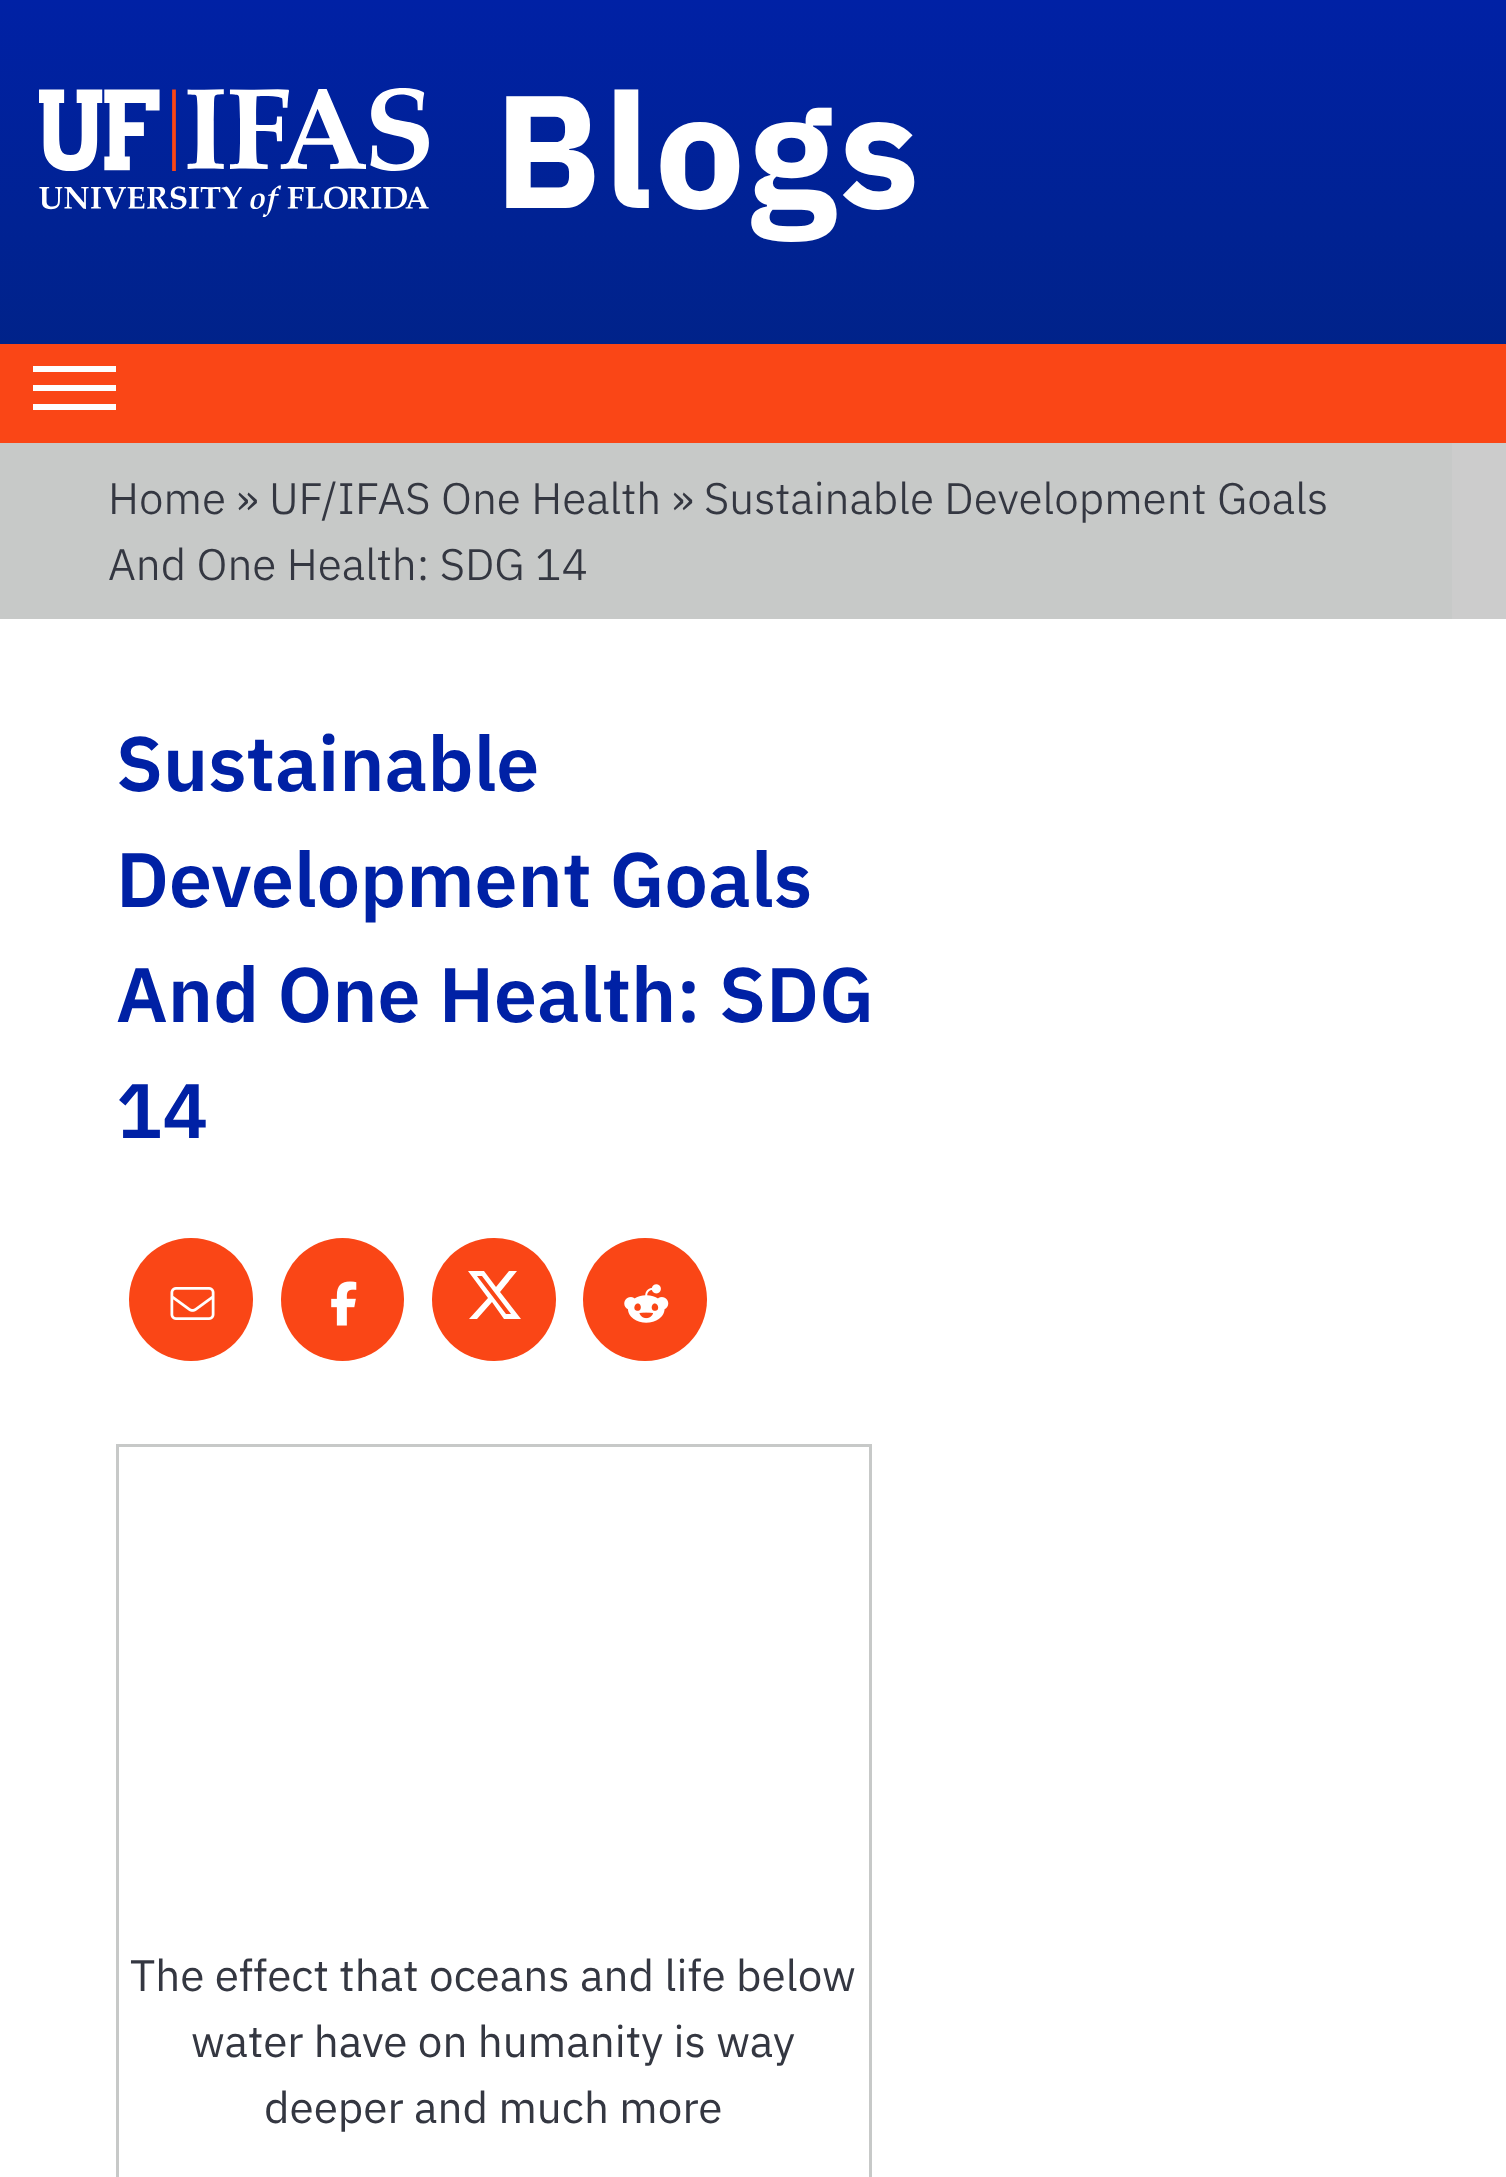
<svg xmlns="http://www.w3.org/2000/svg" width="1506" height="2177">
	<defs>
		<linearGradient id="g1" gradientUnits="userSpaceOnUse" x1="754" y1="0" x2="754" y2="440"><stop offset="0" stop-color="#0021A5" /><stop offset="1" stop-color="#002382" /></linearGradient>
	</defs>
	<rect width="100%" height="100%" fill="#FFFFFF" />
	<rect x="0" y="0" width="1506" height="344" fill="url(#g1)" />
	<image x="39" y="88" width="390" height="129" href="assets/img1.png" />
	<text x="494" y="208" font-family="IBM Plex Sans" font-size="160" font-weight="700" letter-spacing="2.75" fill="#FFFFFF">Blogs</text>
	<rect x="0" y="344" width="1506" height="99" fill="#FA4616" />
	<rect x="33" y="404" width="83" height="6" fill="#FEFEFE" />
	<rect x="33" y="385" width="83" height="6" fill="#FEFEFE" />
	<rect x="33" y="366" width="83" height="6" fill="#FEFEFE" />
	<rect x="1452" y="443" width="54" height="176" fill="#CCCCCC" />
	<rect x="0" y="443" width="1452" height="176" fill="#C7C9C8" />
	<g font-family="IBM Plex Sans" font-size="44" font-weight="300" fill="#343741">
		<text x="108" y="514">Home » UF/IFAS One Health » Sustainable Development Goals</text>
		<text x="108" y="580">And One Health: SDG 14</text>
	</g>
	<g font-family="IBM Plex Sans" font-size="77" font-weight="600" fill="#0021A5">
		<text x="116" y="791">Sustainable</text>
		<text x="116" y="907">Development Goals</text>
		<text x="116" y="1022">And One Health: SDG</text>
		<text x="116" y="1138">14</text>
	</g>
	<rect x="129" y="1238" width="124" height="123" rx="61.5" fill="#FA4616" />
	<image x="170" y="1287" width="45" height="33" href="assets/img2.png" />
	<circle cx="342.5" cy="1299.5" r="61.5" fill="#FA4616" />
	<image x="331" y="1281" width="26" height="45" href="assets/img3.png" />
	<rect x="432" y="1238" width="124" height="123" rx="61.5" fill="#FA4616" />
	<path d="M509 1271H517H509H517L500 1292L521 1319H504L492 1302L477 1319H469L488 1298L468 1271H484L496 1287ZM506 1314H511H506H511L482 1276H477Z" fill="#FFFFFF" />
	<rect x="583" y="1238" width="124" height="123" rx="61.5" fill="#FA4616" />
	<image x="624" y="1284" width="45" height="39" href="assets/img4.png" />
	<rect x="117.5" y="1445.5" width="753" height="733" fill="none" stroke="#C7C9C8" stroke-width="3" />
	<g font-family="IBM Plex Sans" font-size="44" fill="#343741">
		<text x="130" y="1991">The effect that oceans and life below</text>
		<text x="191" y="2057">water have on humanity is way</text>
		<text x="264" y="2123">deeper and much more</text>
	</g>
</svg>
